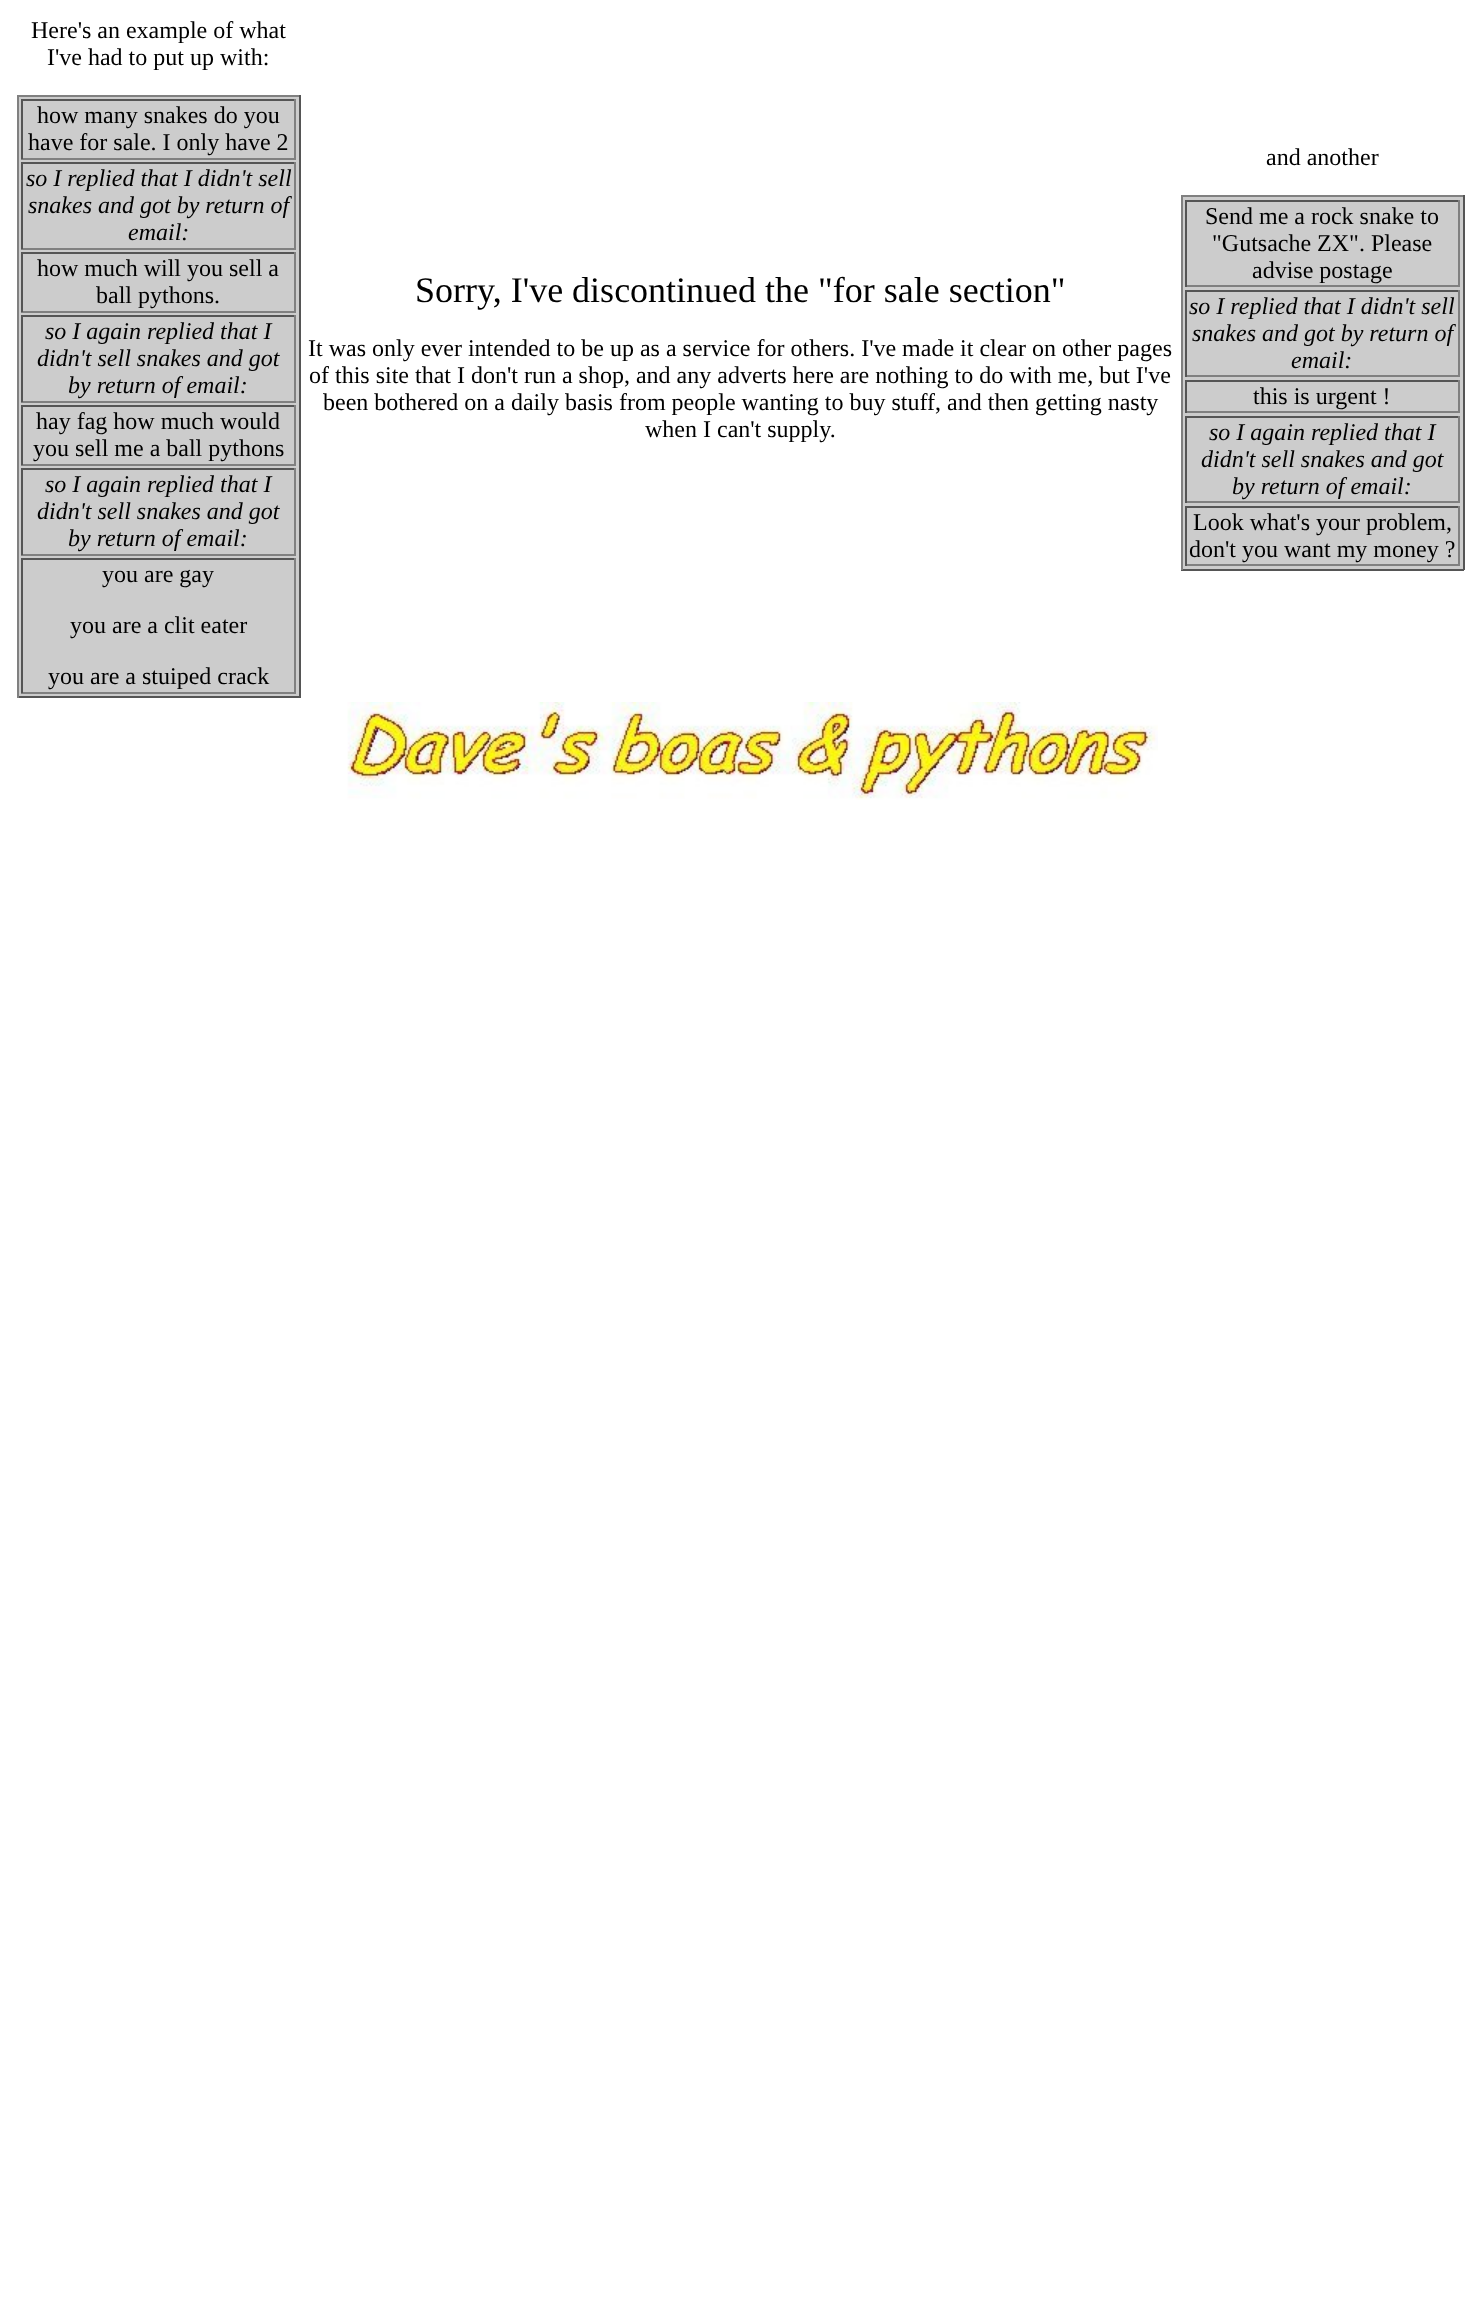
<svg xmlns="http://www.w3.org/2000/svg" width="1480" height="2320">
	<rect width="100%" height="100%" fill="#FFFFFF" />
	<g font-family="Liberation Serif" font-size="24" fill="#000000">
		<text x="31" y="38">Here's an example of what</text>
		<text x="47" y="65">I've had to put up with:</text>
	</g>
	<rect x="19" y="97" width="280" height="599" fill="#CCCCCC" />
	<rect x="17" y="95" width="283" height="2" fill="#808080" />
	<rect x="299" y="95" width="2" height="603" fill="#555555" />
	<rect x="17" y="696" width="283" height="2" fill="#555555" />
	<rect x="17" y="95" width="2" height="603" fill="#808080" />
	<rect x="21" y="99" width="275" height="2" fill="#555555" />
	<rect x="294" y="99" width="2" height="60" fill="#808080" />
	<rect x="21" y="158" width="275" height="2" fill="#808080" />
	<rect x="21" y="99" width="2" height="60" fill="#555555" />
	<g font-family="Liberation Serif" font-size="24" fill="#000000">
		<text x="37" y="123">how many snakes do you</text>
		<text x="28" y="150">have for sale. I only have 2</text>
	</g>
	<rect x="21" y="162" width="275" height="2" fill="#555555" />
	<rect x="294" y="162" width="2" height="87" fill="#808080" />
	<rect x="21" y="248" width="275" height="2" fill="#808080" />
	<rect x="21" y="162" width="2" height="87" fill="#555555" />
	<g font-family="Liberation Serif" font-size="24" font-style="italic" fill="#000000">
		<text x="26" y="186">so I replied that I didn't sell</text>
		<text x="28" y="213">snakes and got by return of</text>
		<text x="128" y="240">email:</text>
	</g>
	<rect x="21" y="252" width="275" height="2" fill="#555555" />
	<rect x="294" y="252" width="2" height="60" fill="#808080" />
	<rect x="21" y="311" width="275" height="2" fill="#808080" />
	<rect x="21" y="252" width="2" height="60" fill="#555555" />
	<g font-family="Liberation Serif" font-size="24" fill="#000000">
		<text x="37" y="276">how much will you sell a</text>
		<text x="96" y="303">ball pythons.</text>
	</g>
	<rect x="21" y="315" width="275" height="2" fill="#555555" />
	<rect x="294" y="315" width="2" height="87" fill="#808080" />
	<rect x="21" y="401" width="275" height="2" fill="#808080" />
	<rect x="21" y="315" width="2" height="87" fill="#555555" />
	<g font-family="Liberation Serif" font-size="24" font-style="italic" fill="#000000">
		<text x="45" y="339">so I again replied that I</text>
		<text x="37" y="366">didn't sell snakes and got</text>
		<text x="68" y="393">by return of email:</text>
	</g>
	<rect x="21" y="405" width="275" height="2" fill="#555555" />
	<rect x="294" y="405" width="2" height="60" fill="#808080" />
	<rect x="21" y="464" width="275" height="2" fill="#808080" />
	<rect x="21" y="405" width="2" height="60" fill="#555555" />
	<g font-family="Liberation Serif" font-size="24" fill="#000000">
		<text x="36" y="429">hay fag how much would</text>
		<text x="33" y="456">you sell me a ball pythons</text>
	</g>
	<rect x="21" y="468" width="275" height="2" fill="#555555" />
	<rect x="294" y="468" width="2" height="87" fill="#808080" />
	<rect x="21" y="554" width="275" height="2" fill="#808080" />
	<rect x="21" y="468" width="2" height="87" fill="#555555" />
	<g font-family="Liberation Serif" font-size="24" font-style="italic" fill="#000000">
		<text x="45" y="492">so I again replied that I</text>
		<text x="37" y="519">didn't sell snakes and got</text>
		<text x="68" y="546">by return of email:</text>
	</g>
	<rect x="21" y="558" width="275" height="2" fill="#555555" />
	<rect x="294" y="558" width="2" height="135" fill="#808080" />
	<rect x="21" y="692" width="275" height="2" fill="#808080" />
	<rect x="21" y="558" width="2" height="135" fill="#555555" />
	<g font-family="Liberation Serif" font-size="24" fill="#000000">
		<text x="102" y="582">you are gay</text>
		<text x="70" y="633">you are a clit eater</text>
		<text x="48" y="684">you are a stuiped crack</text>
	</g>
	<text x="415" y="302" font-family="Liberation Serif" font-size="36" fill="#000000">Sorry, I've discontinued the "for sale section"</text>
	<g font-family="Liberation Serif" font-size="24" fill="#000000">
		<text x="308" y="356">It was only ever intended to be up as a service for others. I've made it clear on other pages</text>
		<text x="309" y="383">of this site that I don't run a shop, and any adverts here are nothing to do with me, but I've</text>
		<text x="323" y="410">been bothered on a daily basis from people wanting to buy stuff, and then getting nasty</text>
		<text x="645" y="437">when I can't supply.</text>
		<text x="1266" y="165">and another</text>
	</g>
	<rect x="1183" y="197" width="280" height="372" fill="#CCCCCC" />
	<rect x="1181" y="195" width="283" height="2" fill="#808080" />
	<rect x="1463" y="195" width="2" height="375" fill="#555555" />
	<rect x="1181" y="569" width="283" height="2" fill="#555555" />
	<rect x="1181" y="195" width="2" height="375" fill="#808080" />
	<rect x="1185" y="200" width="275" height="2" fill="#555555" />
	<rect x="1458" y="200" width="2" height="87" fill="#808080" />
	<rect x="1185" y="285" width="275" height="2" fill="#808080" />
	<rect x="1185" y="200" width="2" height="87" fill="#555555" />
	<g font-family="Liberation Serif" font-size="24" fill="#000000">
		<text x="1205" y="224">Send me a rock snake to</text>
		<text x="1212" y="251">"Gutsache ZX". Please</text>
		<text x="1252" y="278">advise postage</text>
	</g>
	<rect x="1185" y="290" width="275" height="2" fill="#555555" />
	<rect x="1458" y="290" width="2" height="87" fill="#808080" />
	<rect x="1185" y="375" width="275" height="2" fill="#808080" />
	<rect x="1185" y="290" width="2" height="87" fill="#555555" />
	<g font-family="Liberation Serif" font-size="24" font-style="italic" fill="#000000">
		<text x="1189" y="314">so I replied that I didn't sell</text>
		<text x="1192" y="341">snakes and got by return of</text>
		<text x="1291" y="368">email:</text>
	</g>
	<rect x="1185" y="380" width="275" height="2" fill="#555555" />
	<rect x="1458" y="380" width="2" height="33" fill="#808080" />
	<rect x="1185" y="411" width="275" height="2" fill="#808080" />
	<rect x="1185" y="380" width="2" height="33" fill="#555555" />
	<text x="1253" y="404" font-family="Liberation Serif" font-size="24" fill="#000000">this is urgent !</text>
	<rect x="1185" y="416" width="275" height="2" fill="#555555" />
	<rect x="1458" y="416" width="2" height="87" fill="#808080" />
	<rect x="1185" y="501" width="275" height="2" fill="#808080" />
	<rect x="1185" y="416" width="2" height="87" fill="#555555" />
	<g font-family="Liberation Serif" font-size="24" font-style="italic" fill="#000000">
		<text x="1209" y="440">so I again replied that I</text>
		<text x="1201" y="467">didn't sell snakes and got</text>
		<text x="1232" y="494">by return of email:</text>
	</g>
	<rect x="1185" y="506" width="275" height="2" fill="#555555" />
	<rect x="1458" y="506" width="2" height="60" fill="#808080" />
	<rect x="1185" y="564" width="275" height="2" fill="#808080" />
	<rect x="1185" y="506" width="2" height="60" fill="#555555" />
	<g font-family="Liberation Serif" font-size="24" fill="#000000">
		<text x="1193" y="530">Look what's your problem,</text>
		<text x="1189" y="557">don't you want my money ?</text>
	</g>
	<image x="347" y="702" width="811" height="98" href="assets/img1.png" />
</svg>
